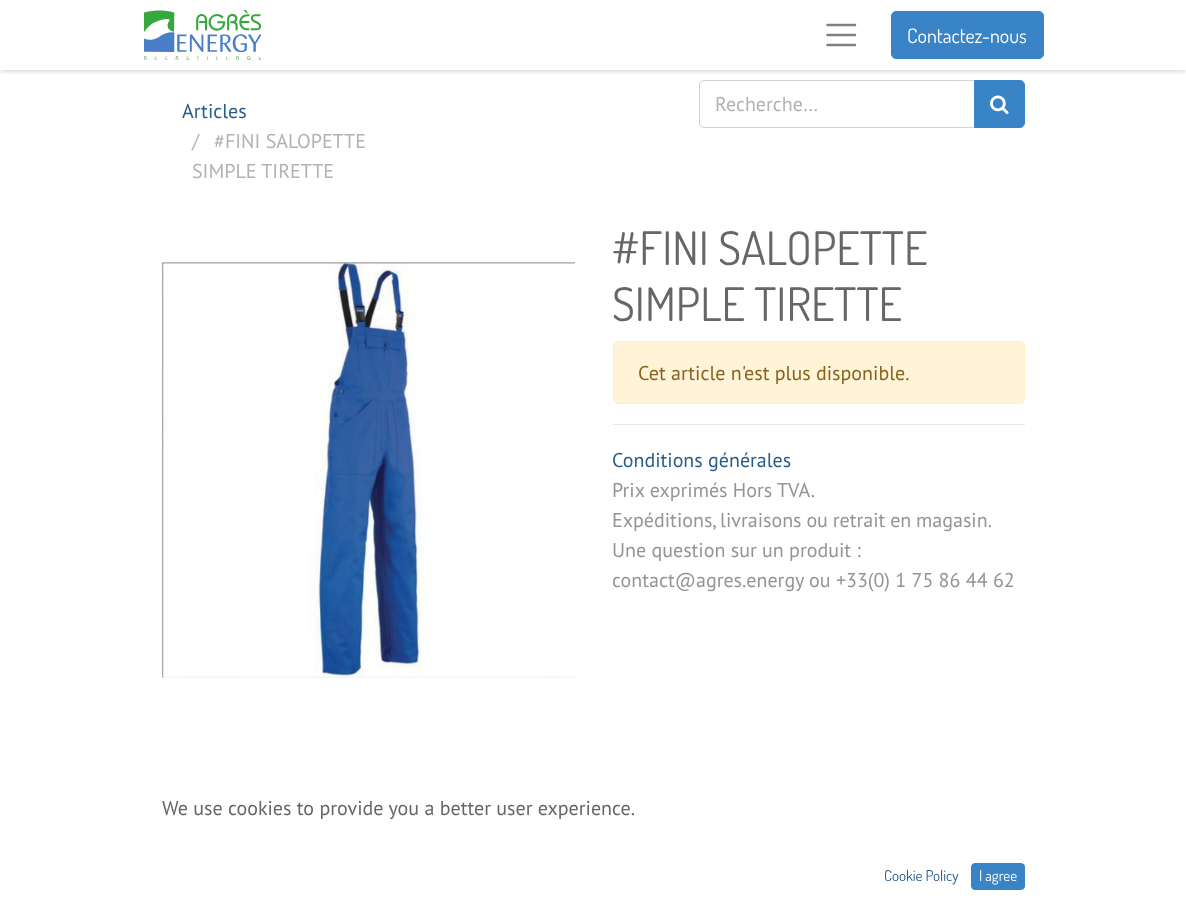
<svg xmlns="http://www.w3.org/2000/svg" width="1186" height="910">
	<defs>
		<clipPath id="clip1"><rect x="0" y="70" width="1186" height="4" /></clipPath>
	</defs>
	<rect width="100%" height="100%" fill="#FFFFFF" />
	<g clip-path="url(#clip1)">
		<rect x="0" y="0" width="1186" height="70" fill="#000000" fill-opacity="0.25" filter="blur(3px)" />
	</g>
	<image x="144" y="10" width="117" height="50" href="assets/img1.png" />
	<path d="M827.5 25H855M827.5 35H855M827.5 45H855" fill="none" stroke="#808080" stroke-width="2.5" stroke-linecap="round" />
	<rect x="891.5" y="11.5" width="152" height="47" rx="4.5" fill="#3984C6" stroke="#3984C6" />
	<text x="907" y="43" font-family="Dosis" font-size="20" fill="#FFFFFF">Contactez-nous</text>
	<text x="182" y="118" font-family="PT Sans" font-size="20" fill="#285C8B">Articles</text>
	<g font-family="PT Sans" font-size="20" fill="#B3B2B2">
		<text x="192" y="148">/</text>
		<text x="214" y="148">#FINI SALOPETTE</text>
		<text x="192" y="178">SIMPLE TIRETTE</text>
	</g>
	<path d="M704 80.5H974.5V127.5H704C701.5 127.5 699.5 125.5 699.5 123V85C699.5 82.5 701.5 80.5 704 80.5Z" fill="none" stroke="#CED4DA" />
	<text x="715" y="111" font-family="PT Sans" font-size="20" fill="#B3B2B2">Recherche…</text>
	<path d="M974.5 80.5H1020C1022.5 80.5 1024.5 82.5 1024.5 85V123C1024.5 125.5 1022.5 127.5 1020 127.5H974.5Z" fill="#3984C6" stroke="#3984C6" />
	<image x="990" y="95" width="19" height="20" href="assets/img2.png" />
	<image x="162" y="262" width="413" height="416" href="assets/img3.png" />
	<g font-family="Dosis" font-size="46.25" fill="#666666">
		<text x="612" y="265">#FINI SALOPETTE</text>
		<text x="612" y="321">SIMPLE TIRETTE</text>
	</g>
	<rect x="613.5" y="341.5" width="411" height="62" rx="4.5" fill="#FFF3D8" stroke="#FFEEC9" />
	<text x="638" y="380" font-family="PT Sans" font-size="20" fill="#856420">Cet article n'est plus disponible.</text>
	<rect x="613" y="424" width="412" height="1" fill="#E6E6E6" />
	<text x="612" y="467" font-family="PT Sans" font-size="20" fill="#285C8B">Conditions générales</text>
	<g font-family="PT Sans" font-size="20" fill="#949494">
		<text x="612" y="497">Prix exprimés Hors TVA.</text>
		<text x="612" y="527" word-spacing="-0.5">Expéditions, livraisons ou retrait en magasin.</text>
		<text x="612" y="557">Une question sur un produit :</text>
		<text x="612" y="587">contact@agres.energy ou +33(0) 1 75 86 44 62</text>
	</g>
	<text x="162" y="815" font-family="PT Sans" font-size="20" fill="#666666">We use cookies to provide you a better user experience.</text>
	<text x="884" y="881" font-family="Dosis" font-size="15" fill="#285C8B">Cookie Policy</text>
	<rect x="971.5" y="863.5" width="53" height="26" rx="3.5" fill="#3984C6" stroke="#3984C6" />
	<text x="979" y="881" font-family="Dosis" font-size="15" fill="#FFFFFF">I agree</text>
</svg>
